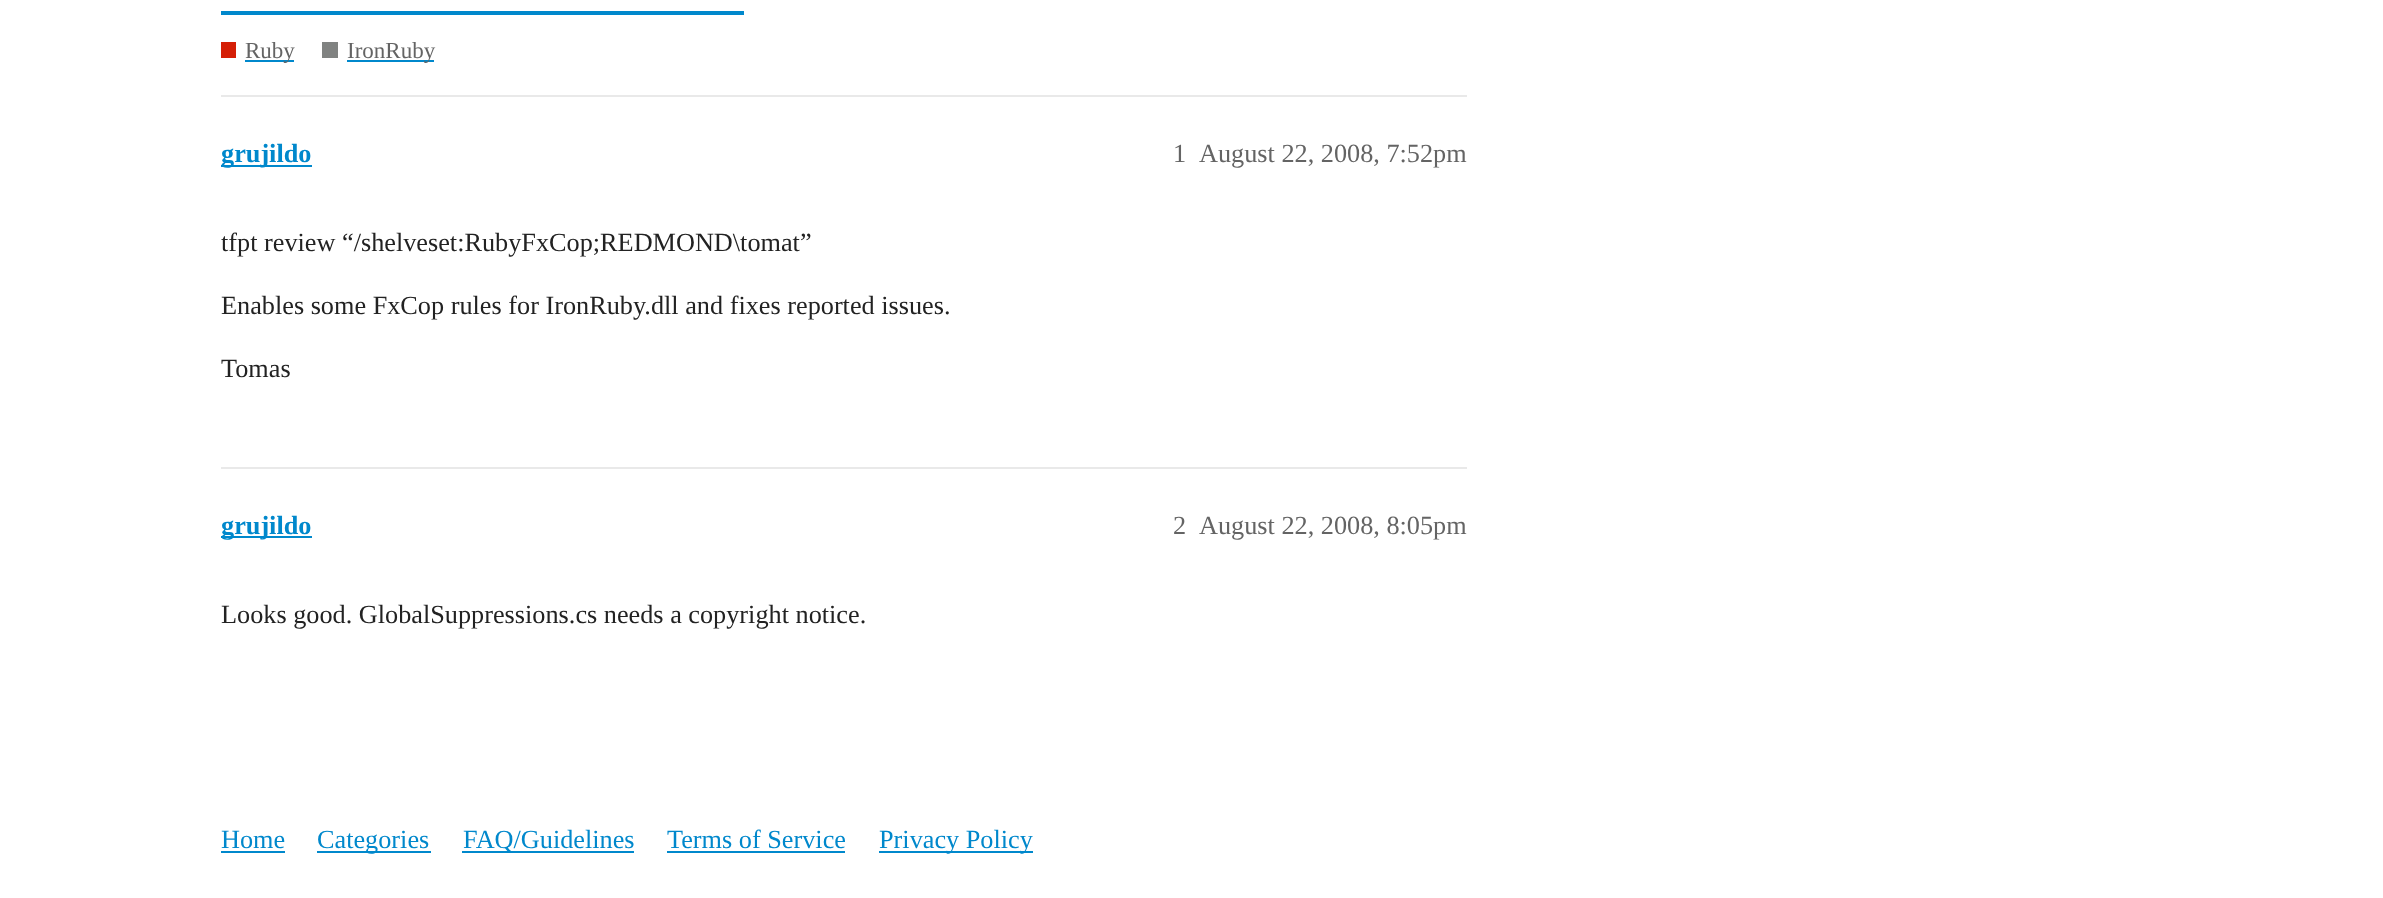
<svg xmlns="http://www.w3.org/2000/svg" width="2383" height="898">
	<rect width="100%" height="100%" fill="#FFFFFF" />
	<rect x="221" y="11" width="523" height="4" fill="#0088CC" />
	<rect x="221" y="42" width="15" height="16" fill="#D51F06" />
	<rect x="245" y="60" width="49" height="2" fill="#0088CC" />
	<text x="245" y="58" font-family="Liberation Serif" font-size="23" fill="#646464">Ruby</text>
	<rect x="322" y="42" width="16" height="16" fill="#808281" />
	<rect x="347" y="60" width="87" height="2" fill="#0088CC" />
	<text x="347" y="58" font-family="Liberation Serif" font-size="23" fill="#646464">IronRuby</text>
	<rect x="221" y="95" width="1246" height="2" fill="#E9E9E9" />
	<rect x="221" y="165" width="91" height="2" fill="#0088CC" />
	<text x="221" y="162" font-family="Liberation Serif" font-size="26.25" font-weight="700" fill="#0088CC">grujildo</text>
	<g font-family="Liberation Serif" font-size="26.25" fill="#646464">
		<text x="1173" y="162">1</text>
		<text x="1199" y="162">August 22, 2008, 7:52pm</text>
	</g>
	<g font-family="Liberation Serif" font-size="26.25" fill="#222222">
		<text x="221" y="251">tfpt review “/shelveset:RubyFxCop;REDMOND\tomat”</text>
		<text x="221" y="314">Enables some FxCop rules for IronRuby.dll and fixes reported issues.</text>
		<text x="221" y="377">Tomas</text>
	</g>
	<rect x="221" y="467" width="1246" height="2" fill="#E9E9E9" />
	<rect x="221" y="536" width="91" height="2" fill="#0088CC" />
	<text x="221" y="534" font-family="Liberation Serif" font-size="26.25" font-weight="700" fill="#0088CC">grujildo</text>
	<g font-family="Liberation Serif" font-size="26.25" fill="#646464">
		<text x="1173" y="534">2</text>
		<text x="1199" y="534">August 22, 2008, 8:05pm</text>
	</g>
	<text x="221" y="623" font-family="Liberation Serif" font-size="26.25" fill="#222222">Looks good. GlobalSuppressions.cs needs a copyright notice.</text>
	<text x="221" y="848" font-family="Liberation Serif" font-size="26.25" fill="#0088CC">Home</text>
	<rect x="221" y="851" width="64" height="2" fill="#0088CC" />
	<rect x="317" y="851" width="114" height="2" fill="#0088CC" />
	<text x="317" y="848" font-family="Liberation Serif" font-size="26.25" fill="#0088CC">Categories</text>
	<rect x="462" y="851" width="172" height="2" fill="#0088CC" />
	<g font-family="Liberation Serif" font-size="26.25" fill="#0088CC">
		<text x="463" y="848">FAQ/Guidelines</text>
		<text x="667" y="848">Terms of Service</text>
	</g>
	<rect x="667" y="851" width="178" height="2" fill="#0088CC" />
	<rect x="879" y="851" width="154" height="2" fill="#0088CC" />
	<text x="879" y="848" font-family="Liberation Serif" font-size="26.25" fill="#0088CC">Privacy Policy</text>
</svg>
